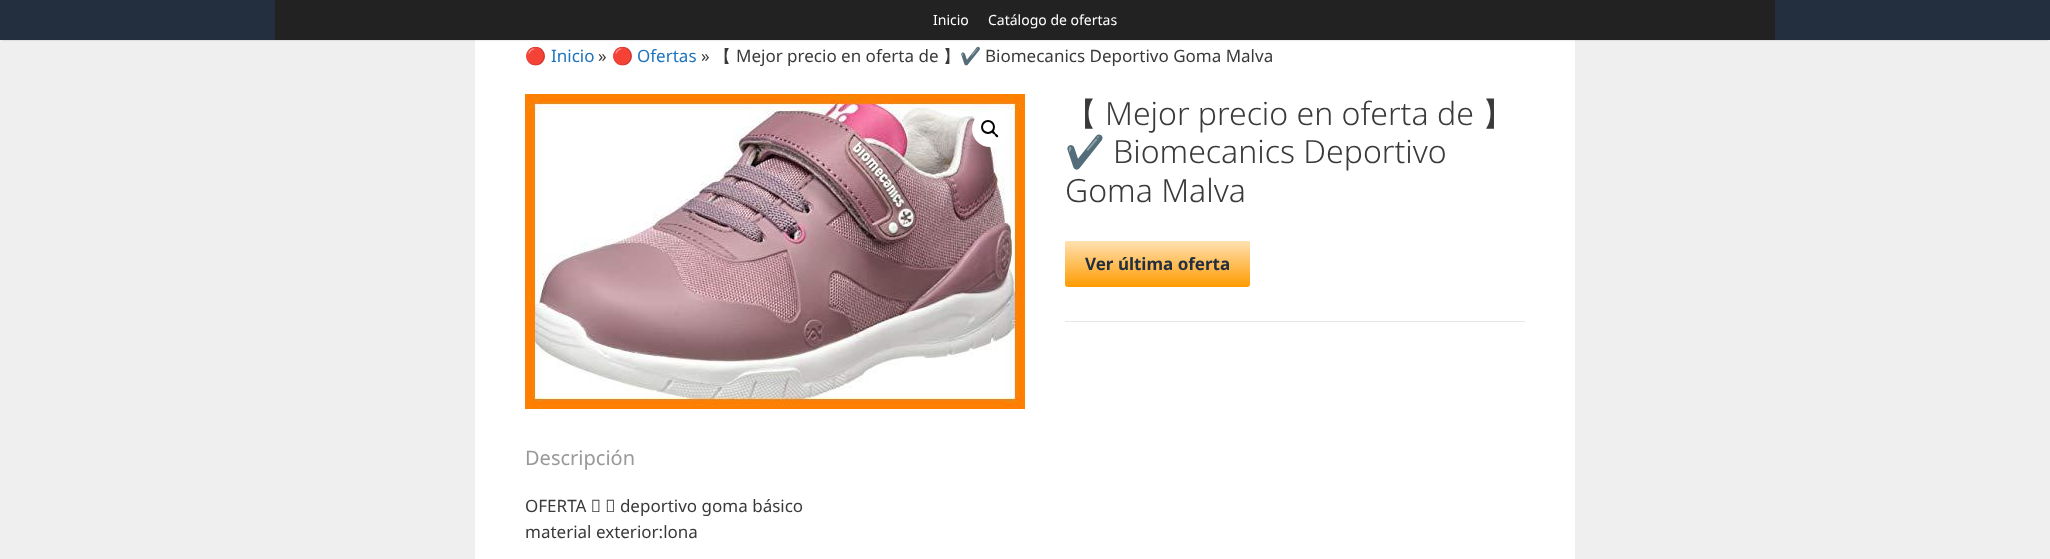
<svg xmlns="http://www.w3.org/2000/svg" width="2050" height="559">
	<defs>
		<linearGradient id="g1" gradientUnits="userSpaceOnUse" x1="1158" y1="241" x2="1158" y2="287"><stop offset="0" stop-color="#FFFFFF" stop-opacity="0.7" /><stop offset="1" stop-color="#FFFFFF" stop-opacity="0" /></linearGradient>
	</defs>
	<rect width="100%" height="100%" fill="#EFEFEF" />
	<rect x="475" y="40" width="1100" height="519" fill="#FFFFFF" />
	<rect x="2" y="4" width="2046" height="36" fill="#000000" fill-opacity="0.2" filter="blur(1px)" />
	<rect x="0" y="0" width="2050" height="40" fill="#232F3E" />
	<rect x="275" y="0" width="1500" height="40" fill="#222222" />
	<g font-family="Noto Sans" font-size="14" fill="#FFFFFF">
		<text x="933" y="25">Inicio</text>
		<text x="988" y="25">Catálogo de ofertas</text>
	</g>
	<text x="525" y="62" font-family="Noto Color Emoji" font-size="17" fill="#1E73BE">🔴</text>
	<text x="551" y="62" font-family="Noto Sans" font-size="17" fill="#1E73BE">Inicio</text>
	<text x="598" y="62" font-family="Noto Sans" font-size="17" fill="#3A3A3A">»</text>
	<text x="612" y="62" font-family="Noto Color Emoji" font-size="17" fill="#1E73BE">🔴</text>
	<text x="637" y="62" font-family="Noto Sans" font-size="17" fill="#1E73BE">Ofertas</text>
	<text x="701" y="62" font-family="Noto Sans" font-size="17" fill="#3A3A3A">»</text>
	<text x="714" y="62" font-family="WenQuanYi Zen Hei" font-size="17" font-weight="500" fill="#3A3A3A">【</text>
	<text x="736" y="62" font-family="Noto Sans" font-size="17" fill="#3A3A3A">Mejor precio en oferta de</text>
	<text x="943" y="62" font-family="WenQuanYi Zen Hei" font-size="17" font-weight="500" fill="#3A3A3A">】</text>
	<text x="960" y="62" font-family="Noto Color Emoji" font-size="17" fill="#3A3A3A">✔️</text>
	<text x="985" y="62" font-family="Noto Sans" font-size="17" fill="#3A3A3A">Biomecanics Deportivo Goma Malva</text>
	<image x="525" y="94" width="500" height="315" href="assets/img1.png" />
	<circle cx="990" cy="129" r="18" fill="#FFFFFF" />
	<circle cx="988" cy="127" r="6" fill="none" stroke="#000000" stroke-width="2" />
	<path d="M992 131C993.5 130 995 132.5 995.5 133.5C996.5 134 999 135.5 998 137C996.5 138 995 135.5 994.5 134.5C993.5 134 991 132.5 992 131Z" fill="#000000" />
	<text x="1065" y="125" font-family="WenQuanYi Zen Hei" font-size="32" font-weight="500" fill="#3A3A3A">【</text>
	<text x="1105" y="125" font-family="Noto Sans" font-size="32" font-weight="300" fill="#3A3A3A">Mejor precio en oferta de</text>
	<text x="1482" y="125" font-family="WenQuanYi Zen Hei" font-size="32" font-weight="500" fill="#3A3A3A">】</text>
	<text x="1065" y="163" font-family="Noto Color Emoji" font-size="32" fill="#3A3A3A">✔️</text>
	<g font-family="Noto Sans" font-size="32" font-weight="300" fill="#3A3A3A">
		<text x="1113" y="163">Biomecanics Deportivo</text>
		<text x="1065" y="202">Goma Malva</text>
	</g>
	<rect x="1065" y="241" width="185" height="46" rx="3" fill="#FF9B00" />
	<rect x="1065" y="241" width="185" height="46" rx="3" fill="url(#g1)" />
	<text x="1085" y="270" font-family="Noto Sans" font-size="17" font-weight="700" fill="#232F3E">Ver última oferta</text>
	<rect x="1065" y="321" width="460" height="1" fill="#E6E6E6" />
	<text x="525" y="465" font-family="Noto Sans" font-size="20" fill="#999999">Descripción</text>
	<g font-family="Noto Sans" font-size="17" fill="#3A3A3A">
		<text x="525" y="512">OFERTA 󾭊 󾭊 deportivo goma básico</text>
		<text x="525" y="538">material exterior:lona</text>
	</g>
</svg>
